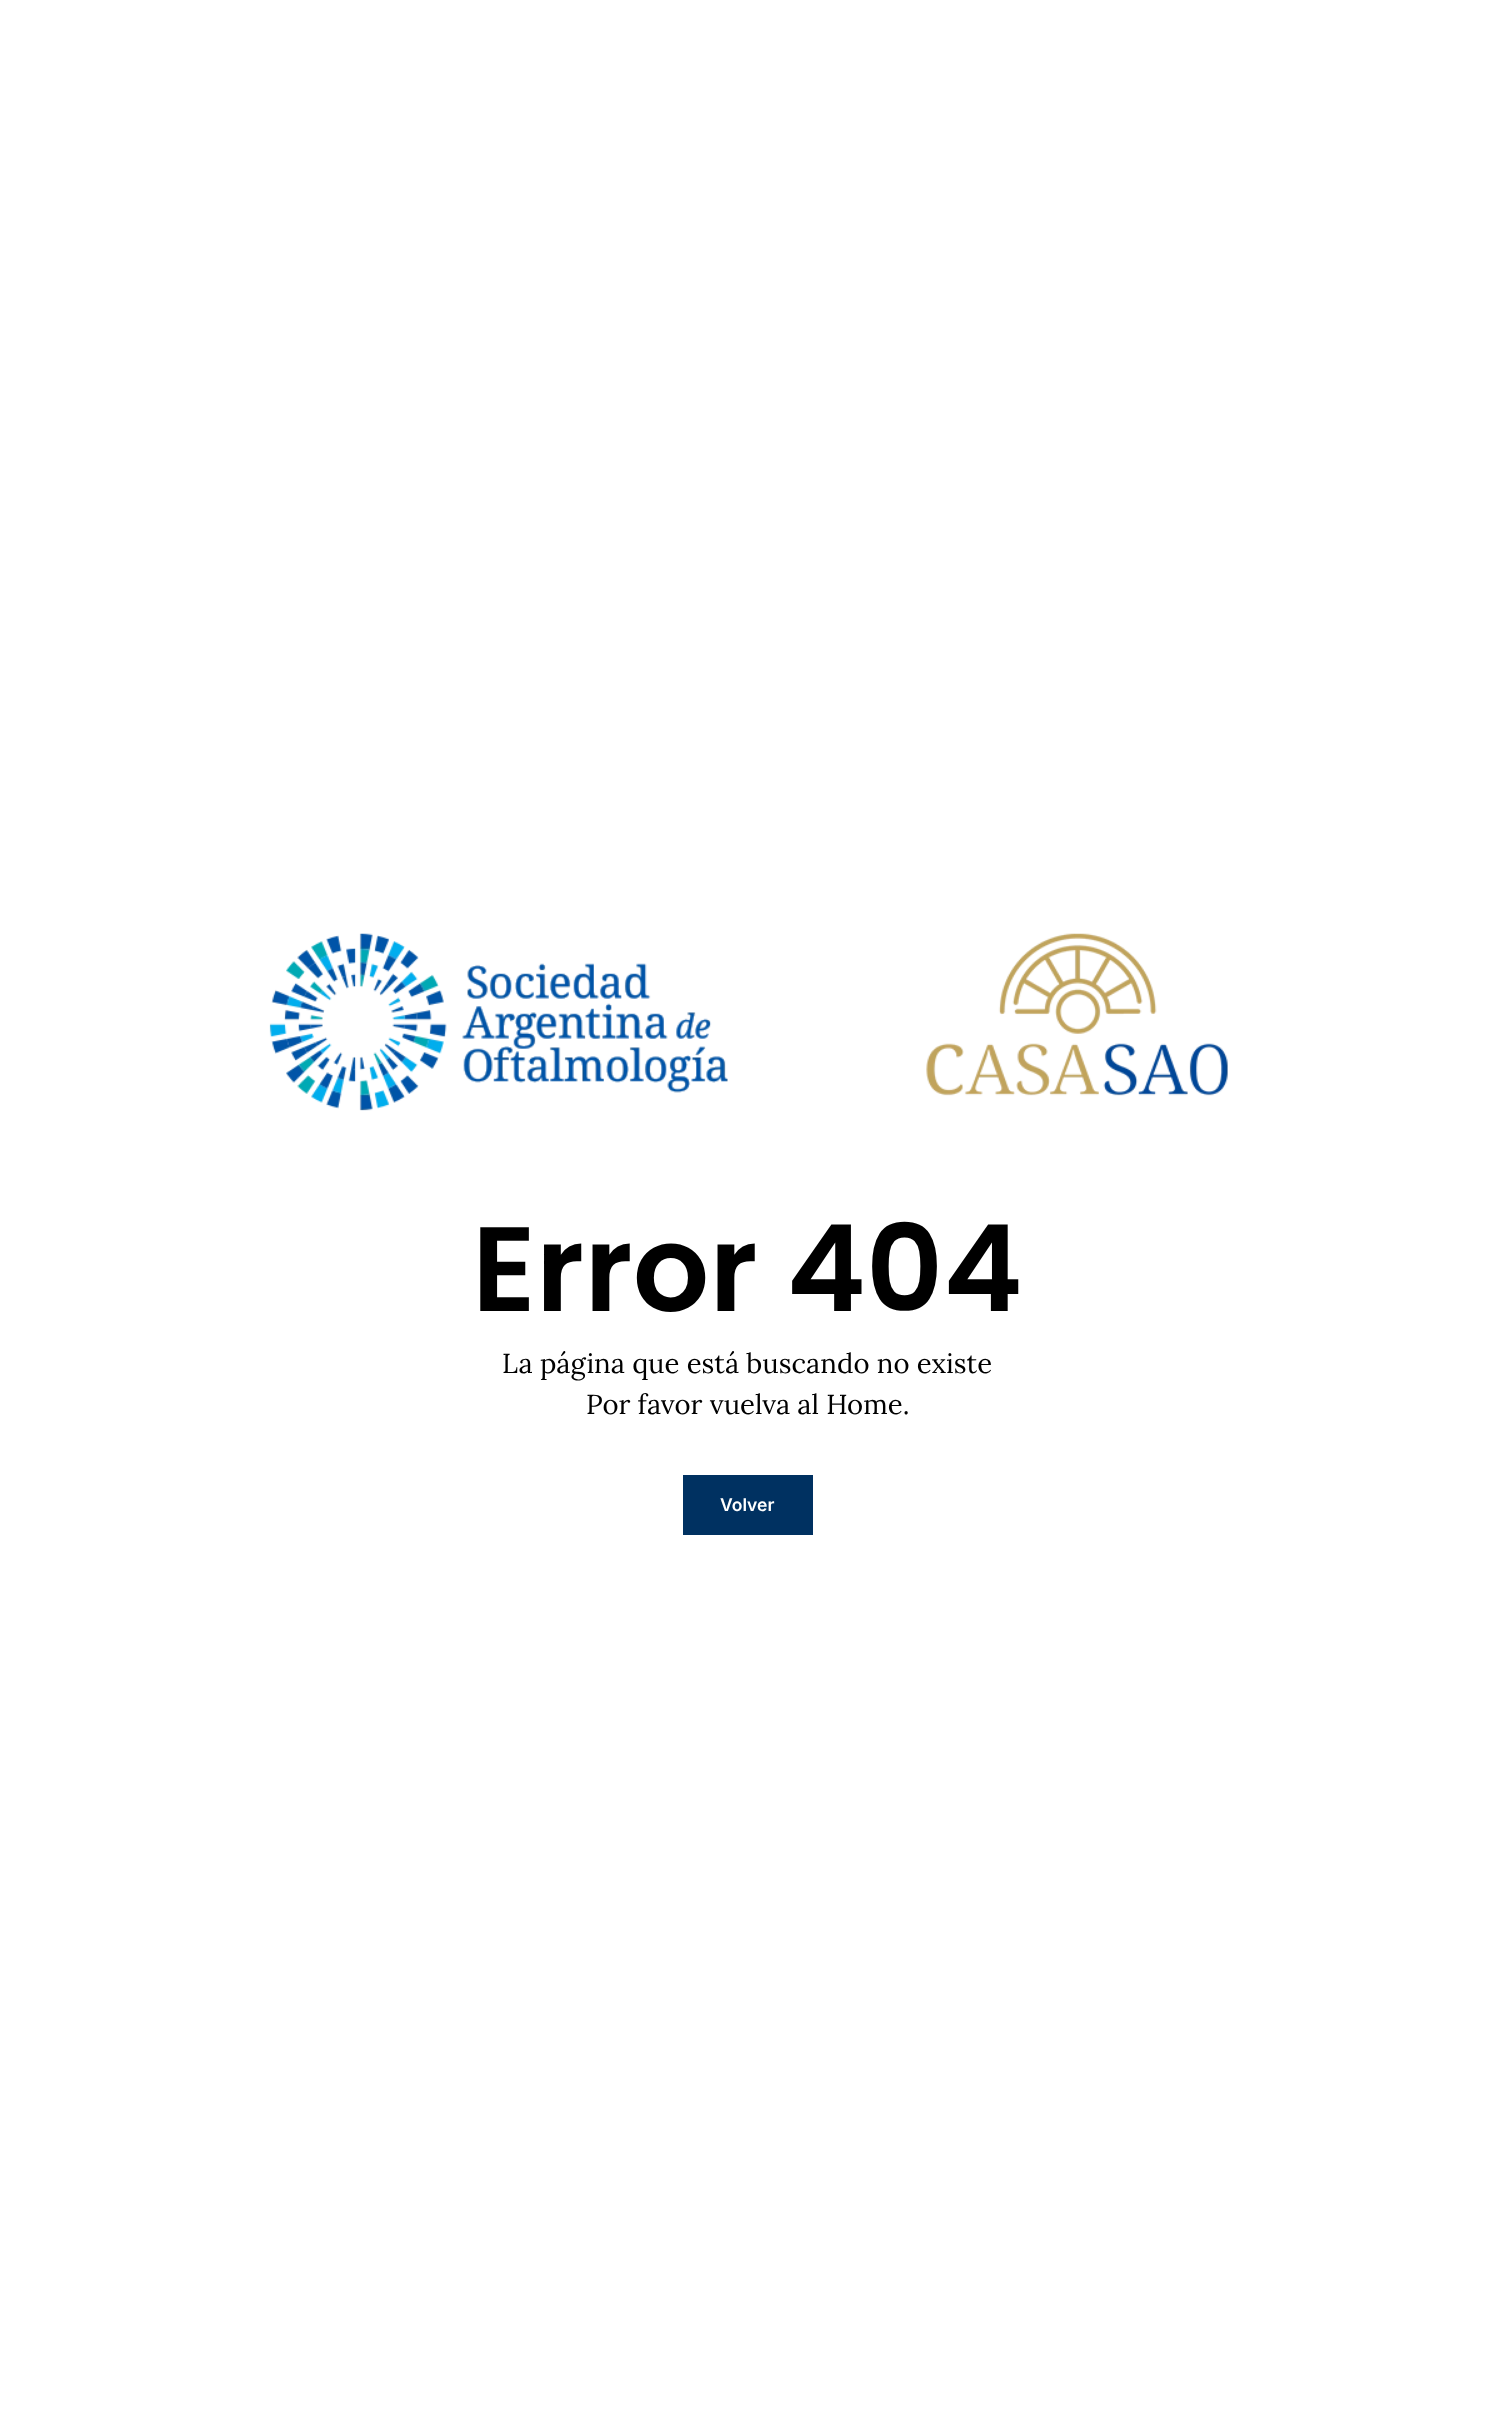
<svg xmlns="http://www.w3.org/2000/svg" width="1495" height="2420">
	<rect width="100%" height="100%" fill="#FFFFFF" />
	<image x="269" y="933" width="959" height="178" href="assets/img1.png" />
	<text x="472" y="1311" font-family="Poppins" font-size="120" font-weight="600" fill="#000000">Error 404</text>
	<g font-family="Lora" font-size="27.5" fill="#000000">
		<text x="502" y="1373">La página que está buscando no existe</text>
		<text x="586" y="1414">Por favor vuelva al Home.</text>
	</g>
	<rect x="683" y="1475" width="130" height="60" fill="#003161" />
	<text x="720" y="1511" font-family="Inter" font-size="17.5" font-weight="600" fill="#FFFFFF">Volver</text>
</svg>
